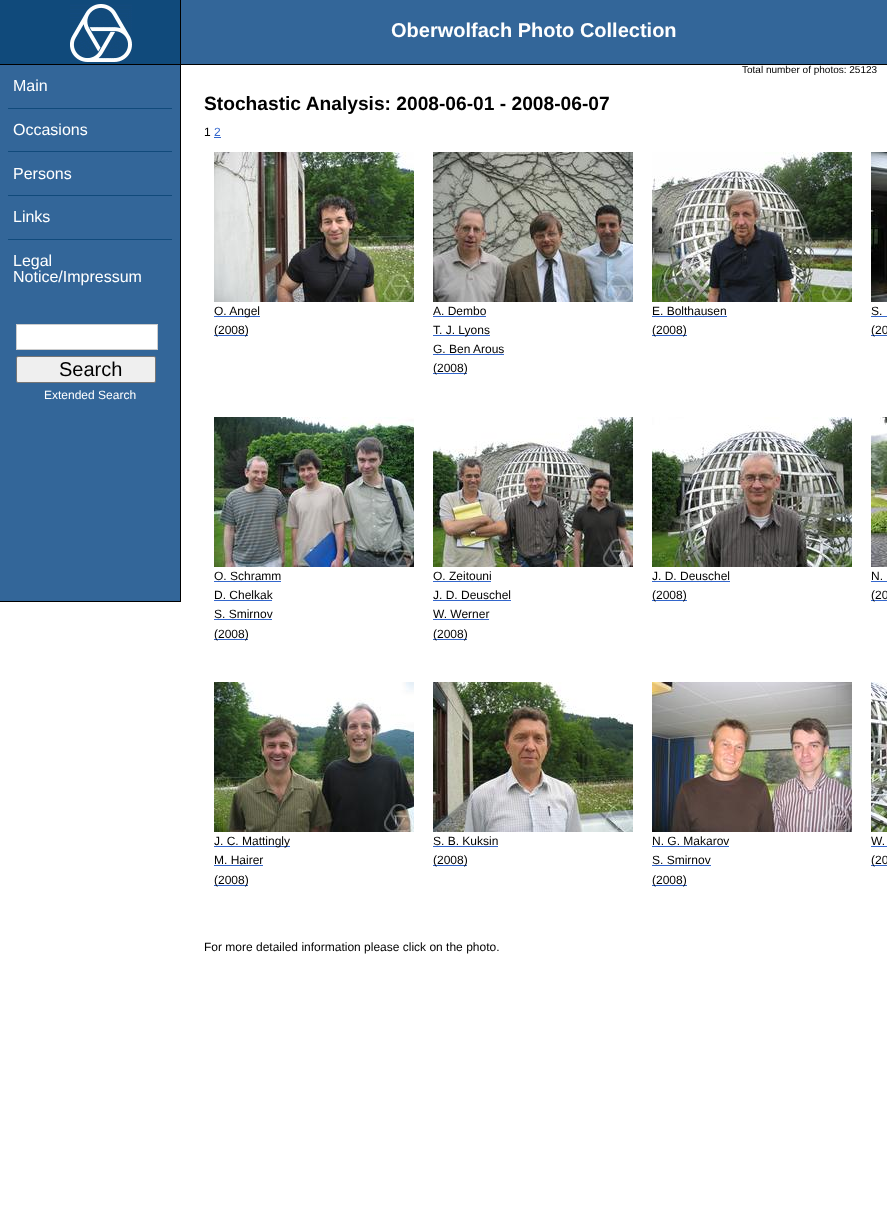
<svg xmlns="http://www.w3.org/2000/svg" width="887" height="1217">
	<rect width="100%" height="100%" fill="#FFFFFF" />
	<rect x="181" y="0" width="706" height="64" fill="#336699" />
	<rect x="0" y="64" width="887" height="1" fill="#000000" />
	<rect x="0" y="0" width="180" height="64" fill="#104A7B" />
	<rect x="180" y="0" width="1" height="64" fill="#000000" />
	<image x="70" y="4" width="62" height="58" href="assets/img1.png" />
	<text x="391" y="37" font-family="Liberation Sans" font-size="20" font-weight="700" fill="#FFFFFF">Oberwolfach Photo Collection</text>
	<text x="742" y="73" font-family="Liberation Sans" font-size="10" fill="#000000">Total number of photos: 25123</text>
	<rect x="0" y="65" width="180" height="536" fill="#336699" />
	<rect x="180" y="65" width="1" height="537" fill="#000000" />
	<rect x="0" y="601" width="181" height="1" fill="#000000" />
	<text x="13" y="91" font-family="Liberation Sans" font-size="16" fill="#FFFFFF">Main</text>
	<rect x="8" y="108" width="164" height="1" fill="#104A7B" />
	<text x="13" y="135" font-family="Liberation Sans" font-size="16" fill="#FFFFFF">Occasions</text>
	<rect x="8" y="151" width="164" height="1" fill="#104A7B" />
	<text x="13" y="179" font-family="Liberation Sans" font-size="16" fill="#FFFFFF">Persons</text>
	<rect x="8" y="195" width="164" height="1" fill="#104A7B" />
	<text x="13" y="222" font-family="Liberation Sans" font-size="16" fill="#FFFFFF">Links</text>
	<rect x="8" y="239" width="164" height="1" fill="#104A7B" />
	<g font-family="Liberation Sans" font-size="16" fill="#FFFFFF">
		<text x="13" y="266">Legal</text>
		<text x="13" y="282">Notice/Impressum</text>
	</g>
	<rect x="16.5" y="324.5" width="141" height="25" fill="#FFFFFF" stroke="#CCCCCC" />
	<rect x="16.5" y="356.5" width="139" height="26" rx="1.5" fill="#EFEFEF" stroke="#767676" />
	<text x="59" y="376" font-family="Liberation Sans" font-size="20" fill="#000000">Search</text>
	<text x="44" y="399" font-family="Liberation Sans" font-size="12" fill="#FFFFFF">Extended Search</text>
	<text x="204" y="110" font-family="Liberation Sans" font-size="19.2" font-weight="700" fill="#000000">Stochastic Analysis: 2008-06-01 - 2008-06-07</text>
	<text x="204" y="136" font-family="Liberation Sans" font-size="12" fill="#000000">1</text>
	<text x="214" y="136" font-family="Liberation Sans" font-size="12" fill="#3366CC">2</text>
	<rect x="214" y="137" width="7" height="1" fill="#3366CC" />
	<image x="214" y="152" width="200" height="150" href="assets/img2.png" />
	<rect x="214" y="316" width="46" height="1" fill="#3366CC" />
	<text x="214" y="315" font-family="Liberation Sans" font-size="12" fill="#000000">O. Angel</text>
	<rect x="214" y="335" width="34" height="1" fill="#3366CC" />
	<text x="214" y="334" font-family="Liberation Sans" font-size="12" fill="#000000">(2008)</text>
	<image x="433" y="152" width="200" height="150" href="assets/img3.png" />
	<text x="433" y="315" font-family="Liberation Sans" font-size="12" fill="#000000">A. Dembo</text>
	<rect x="433" y="316" width="53" height="1" fill="#3366CC" />
	<rect x="433" y="335" width="57" height="1" fill="#3366CC" />
	<g font-family="Liberation Sans" font-size="12" fill="#000000">
		<text x="433" y="334">T. J. Lyons</text>
		<text x="433" y="353">G. Ben Arous</text>
	</g>
	<rect x="433" y="354" width="71" height="1" fill="#3366CC" />
	<rect x="433" y="373" width="34" height="1" fill="#3366CC" />
	<text x="433" y="372" font-family="Liberation Sans" font-size="12" fill="#000000">(2008)</text>
	<image x="652" y="152" width="200" height="150" href="assets/img4.png" />
	<text x="652" y="315" font-family="Liberation Sans" font-size="12" fill="#000000">E. Bolthausen</text>
	<rect x="652" y="316" width="75" height="1" fill="#3366CC" />
	<rect x="652" y="335" width="35" height="1" fill="#3366CC" />
	<text x="652" y="334" font-family="Liberation Sans" font-size="12" fill="#000000">(2008)</text>
	<image x="871" y="152" width="16" height="150" href="assets/img5.png" />
	<text x="871" y="315" font-family="Liberation Sans" font-size="12" fill="#000000">S.</text>
	<rect x="871" y="316" width="16" height="1" fill="#3366CC" />
	<rect x="871" y="335" width="16" height="1" fill="#3366CC" />
	<text x="871" y="334" font-family="Liberation Sans" font-size="12" fill="#000000">(20</text>
	<image x="214" y="417" width="200" height="150" href="assets/img6.png" />
	<text x="214" y="580" font-family="Liberation Sans" font-size="12" fill="#000000">O. Schramm</text>
	<rect x="214" y="581" width="67" height="1" fill="#3366CC" />
	<text x="214" y="599" font-family="Liberation Sans" font-size="12" fill="#000000">D. Chelkak</text>
	<rect x="214" y="600" width="58" height="1" fill="#3366CC" />
	<text x="214" y="618" font-family="Liberation Sans" font-size="12" fill="#000000">S. Smirnov</text>
	<rect x="214" y="619" width="58" height="1" fill="#3366CC" />
	<rect x="214" y="639" width="34" height="1" fill="#3366CC" />
	<text x="214" y="638" font-family="Liberation Sans" font-size="12" fill="#000000">(2008)</text>
	<image x="433" y="417" width="200" height="150" href="assets/img7.png" />
	<text x="433" y="580" font-family="Liberation Sans" font-size="12" fill="#000000">O. Zeitouni</text>
	<rect x="433" y="581" width="58" height="1" fill="#3366CC" />
	<text x="433" y="599" font-family="Liberation Sans" font-size="12" fill="#000000">J. D. Deuschel</text>
	<rect x="433" y="600" width="78" height="1" fill="#3366CC" />
	<text x="433" y="618" font-family="Liberation Sans" font-size="12" fill="#000000">W. Werner</text>
	<rect x="433" y="619" width="56" height="1" fill="#3366CC" />
	<rect x="433" y="639" width="34" height="1" fill="#3366CC" />
	<text x="433" y="638" font-family="Liberation Sans" font-size="12" fill="#000000">(2008)</text>
	<image x="652" y="417" width="200" height="150" href="assets/img8.png" />
	<text x="652" y="580" font-family="Liberation Sans" font-size="12" fill="#000000">J. D. Deuschel</text>
	<rect x="652" y="581" width="78" height="1" fill="#3366CC" />
	<rect x="652" y="600" width="35" height="1" fill="#3366CC" />
	<text x="652" y="599" font-family="Liberation Sans" font-size="12" fill="#000000">(2008)</text>
	<image x="871" y="417" width="16" height="150" href="assets/img9.png" />
	<text x="871" y="580" font-family="Liberation Sans" font-size="12" fill="#000000">N.</text>
	<rect x="871" y="581" width="16" height="1" fill="#3366CC" />
	<rect x="871" y="600" width="16" height="1" fill="#3366CC" />
	<text x="871" y="599" font-family="Liberation Sans" font-size="12" fill="#000000">(20</text>
	<image x="214" y="682" width="200" height="150" href="assets/img10.png" />
	<rect x="214" y="846" width="76" height="1" fill="#3366CC" />
	<g font-family="Liberation Sans" font-size="12" fill="#000000">
		<text x="214" y="845">J. C. Mattingly</text>
		<text x="214" y="864">M. Hairer</text>
	</g>
	<rect x="214" y="865" width="49" height="1" fill="#3366CC" />
	<rect x="214" y="885" width="34" height="1" fill="#3366CC" />
	<text x="214" y="884" font-family="Liberation Sans" font-size="12" fill="#000000">(2008)</text>
	<image x="433" y="682" width="200" height="150" href="assets/img11.png" />
	<text x="433" y="845" font-family="Liberation Sans" font-size="12" fill="#000000">S. B. Kuksin</text>
	<rect x="433" y="846" width="65" height="1" fill="#3366CC" />
	<rect x="433" y="865" width="34" height="1" fill="#3366CC" />
	<text x="433" y="864" font-family="Liberation Sans" font-size="12" fill="#000000">(2008)</text>
	<image x="652" y="682" width="200" height="150" href="assets/img12.png" />
	<text x="652" y="845" font-family="Liberation Sans" font-size="12" fill="#000000">N. G. Makarov</text>
	<rect x="652" y="846" width="77" height="1" fill="#3366CC" />
	<text x="652" y="864" font-family="Liberation Sans" font-size="12" fill="#000000">S. Smirnov</text>
	<rect x="652" y="865" width="59" height="1" fill="#3366CC" />
	<rect x="652" y="885" width="35" height="1" fill="#3366CC" />
	<text x="652" y="884" font-family="Liberation Sans" font-size="12" fill="#000000">(2008)</text>
	<image x="871" y="682" width="16" height="150" href="assets/img13.png" />
	<text x="871" y="845" font-family="Liberation Sans" font-size="12" fill="#000000">W.</text>
	<rect x="871" y="846" width="16" height="1" fill="#3366CC" />
	<rect x="871" y="865" width="16" height="1" fill="#3366CC" />
	<g font-family="Liberation Sans" font-size="12" fill="#000000">
		<text x="871" y="864">(20</text>
		<text x="204" y="951">For more detailed information please click on the photo.</text>
	</g>
</svg>
